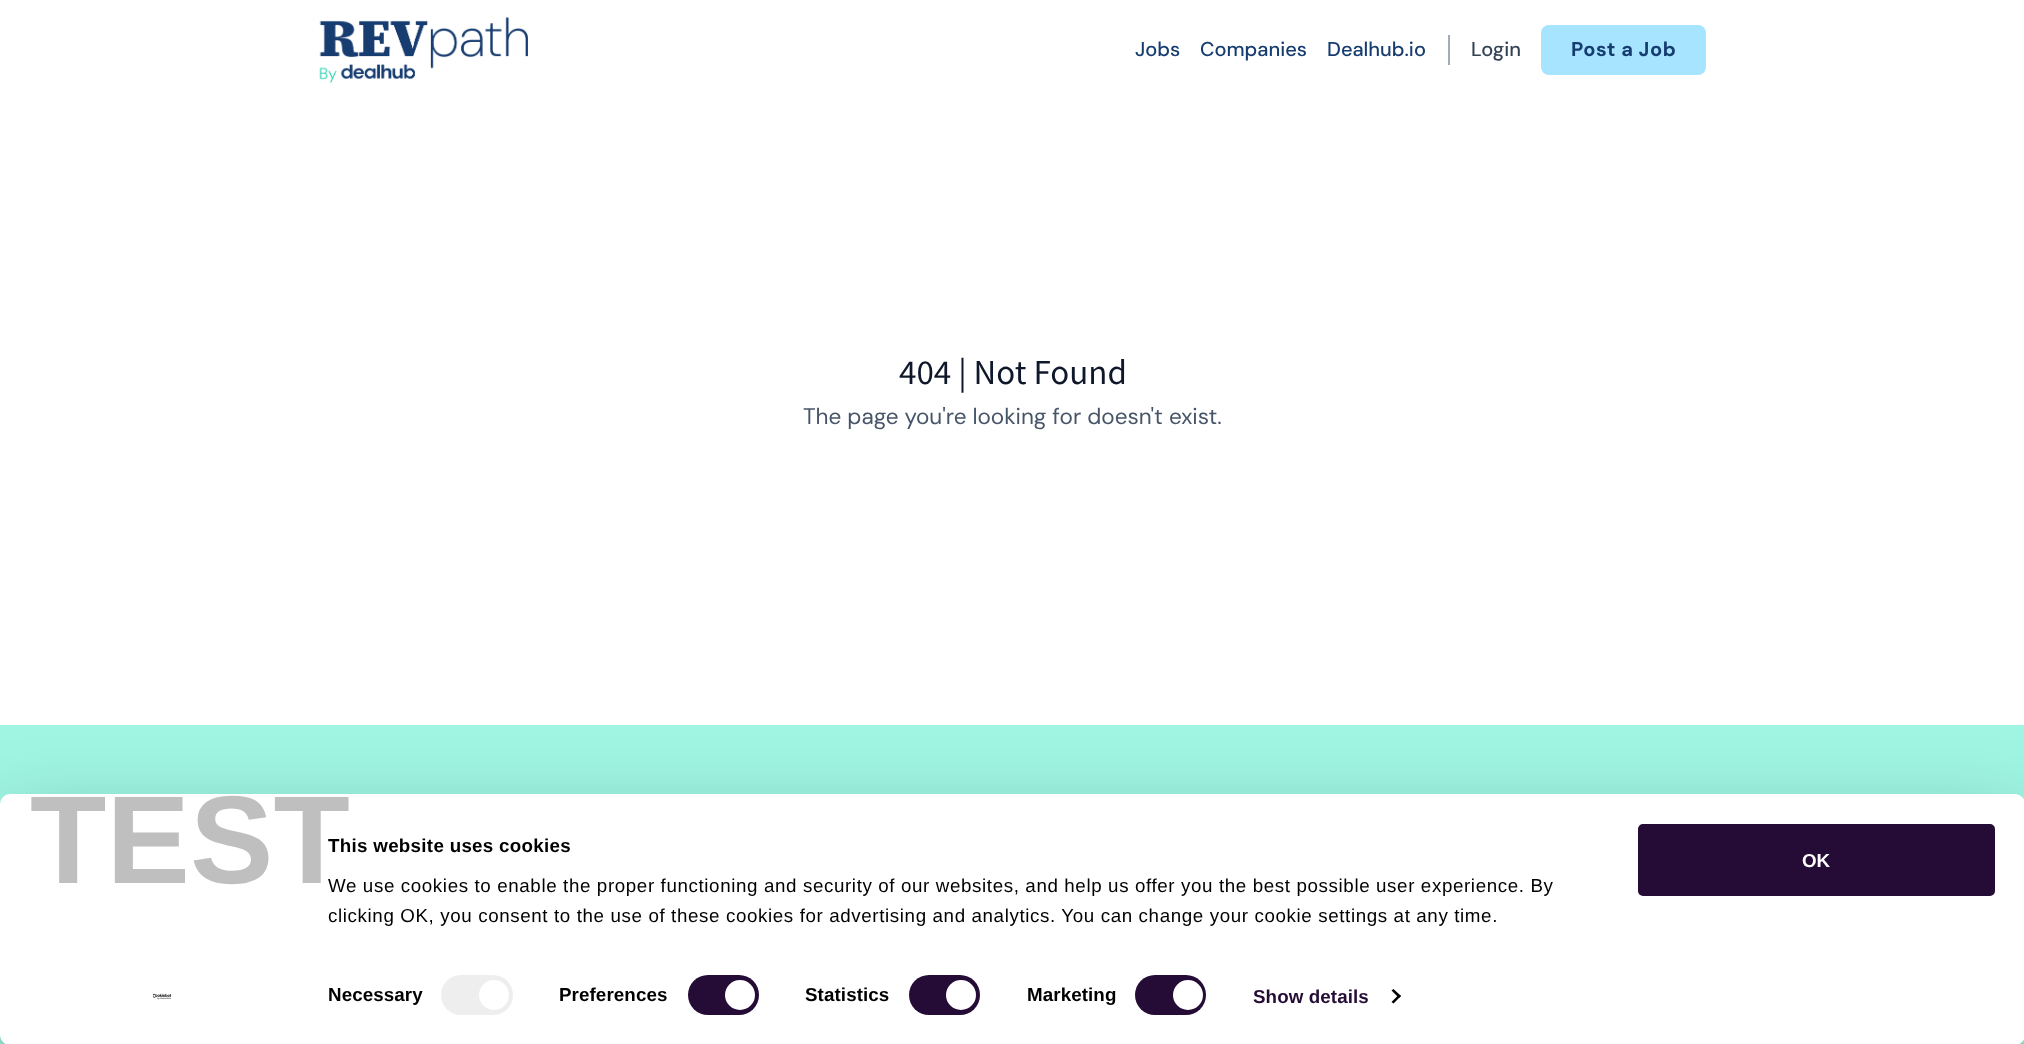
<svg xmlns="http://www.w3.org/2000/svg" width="2024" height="1044">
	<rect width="100%" height="100%" fill="#FFFFFF" />
	<image x="319" y="17" width="209" height="66" href="assets/img1.png" />
	<g font-family="DM Sans" font-size="20" font-weight="500" fill="#163C70">
		<text x="1135" y="56">Jobs</text>
		<text x="1200" y="56">Companies</text>
		<text x="1327" y="56">Dealhub.io</text>
	</g>
	<path d="M1449 35V65" fill="none" stroke="#64748B" stroke-width="1.2" />
	<text x="1471" y="56" font-family="DM Sans" font-size="20" font-weight="500" fill="#334155">Login</text>
	<rect x="1541" y="25" width="165" height="50" rx="8" fill="#A6E4FF" />
	<text x="1571" y="56" font-family="DM Sans" font-size="20" font-weight="700" letter-spacing="0.5" fill="#163C70">Post a Job</text>
	<text x="899" y="384" font-family="Source Sans Pro" font-size="35" fill="#0F172A">404 | Not Found</text>
	<text x="803" y="424" font-family="DM Sans" font-size="22.5" fill="#475569">The page you're looking for doesn't exist.</text>
	<rect x="0" y="725" width="2024" height="319" fill="#9FF5E2" />
	<rect x="0" y="831" width="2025" height="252" rx="10" fill="#000000" fill-opacity="0.3" filter="blur(44px)" />
	<rect x="0" y="794" width="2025" height="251" rx="10" fill="#FFFFFF" />
	<text x="30" y="883" font-family="Liberation Sans" font-size="125" font-weight="700" letter-spacing="0.1" fill="#BFBFBF">TEST</text>
	<text x="328" y="852" font-family="Liberation Sans" font-size="18.75" font-weight="700" letter-spacing="0.3" fill="#000000">This website uses cookies</text>
	<g font-family="Liberation Sans" font-size="18.75" letter-spacing="0.62" fill="#000000">
		<text x="328" y="892">We use cookies to enable the proper functioning and security of our websites, and help us offer you the best possible user experience. By</text>
		<text x="328" y="922">clicking OK, you consent to the use of these cookies for advertising and analytics. You can change your cookie settings at any time.</text>
	</g>
	<text x="328" y="1001" font-family="Liberation Sans" font-size="18.75" font-weight="700" letter-spacing="0.1" fill="#000000">Necessary</text>
	<rect x="441" y="975" width="72" height="40" rx="20" fill="#EEEEEE" />
	<circle cx="494" cy="995" r="15" fill="#FFFFFF" />
	<text x="559" y="1001" font-family="Liberation Sans" font-size="18.75" font-weight="700" letter-spacing="0.1" fill="#000000">Preferences</text>
	<rect x="688" y="975" width="71" height="40" rx="20" fill="#250C36" />
	<circle cx="740" cy="995" r="15" fill="#FFFFFF" />
	<text x="805" y="1001" font-family="Liberation Sans" font-size="18.75" font-weight="700" letter-spacing="0.1" fill="#000000">Statistics</text>
	<rect x="909" y="975" width="71" height="40" rx="20" fill="#250C36" />
	<circle cx="961" cy="995" r="15" fill="#FFFFFF" />
	<text x="1027" y="1001" font-family="Liberation Sans" font-size="18.75" font-weight="700" letter-spacing="0.1" fill="#000000">Marketing</text>
	<rect x="1135" y="975" width="71" height="40" rx="20" fill="#250C36" />
	<circle cx="1188" cy="995" r="15" fill="#FFFFFF" />
	<text x="1253" y="1003" font-family="Liberation Sans" font-size="18.75" font-weight="700" letter-spacing="0.1" fill="#250C36">Show details</text>
	<path d="M1393.5 989L1401 996L1399 998L1391.5 990.5Z" fill="#000000" />
	<path d="M1399 994.5L1401 996L1393.5 1003.5L1391.5 1002Z" fill="#000000" />
	<rect x="1639.5" y="825.5" width="354" height="69" rx="3.5" fill="#250C36" stroke="#250C36" stroke-width="3" />
	<text x="1802" y="867" font-family="Liberation Sans" font-size="18.75" font-weight="700" fill="#FFFFFF">OK</text>
	<image x="153" y="993" width="18" height="7" href="assets/img2.png" />
</svg>
